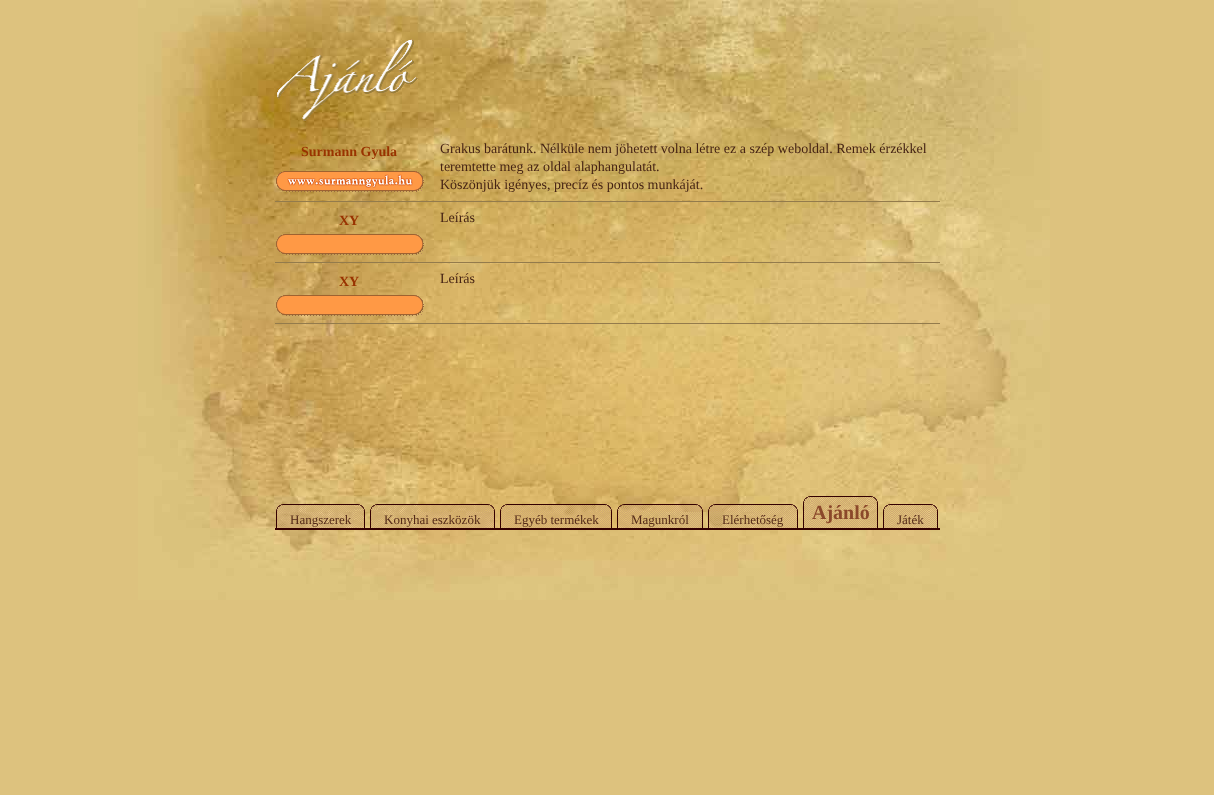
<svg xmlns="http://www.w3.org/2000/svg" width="1214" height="795">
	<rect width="100%" height="100%" fill="#DDC27E" />
	<image x="138" y="0" width="912" height="600" href="assets/img1.png" />
	<image x="277" y="39" width="141" height="82" href="assets/img2.png" />
	<text x="301" y="156" font-family="Liberation Serif" font-size="14" font-weight="700" fill="#993300">Surmann Gyula</text>
	<g font-family="Liberation Serif" font-size="14" fill="#452314">
		<text x="440" y="153">Grakus barátunk. Nélküle nem jöhetett volna létre ez a szép weboldal. Remek érzékkel</text>
		<text x="440" y="171">teremtette meg az oldal alaphangulatát.</text>
		<text x="440" y="189">Köszönjük igényes, precíz és pontos munkáját.</text>
	</g>
	<image x="276" y="171" width="148" height="21" href="assets/img3.png" />
	<rect x="275" y="201" width="665" height="1" fill="#937B4C" />
	<text x="339" y="225" font-family="Liberation Serif" font-size="14" font-weight="700" fill="#993300">XY</text>
	<text x="440" y="222" font-family="Liberation Serif" font-size="14" fill="#452314">Leírás</text>
	<image x="276" y="234" width="148" height="21" href="assets/img4.png" />
	<rect x="275" y="262" width="665" height="1" fill="#937B4C" />
	<text x="339" y="286" font-family="Liberation Serif" font-size="14" font-weight="700" fill="#993300">XY</text>
	<text x="440" y="283" font-family="Liberation Serif" font-size="14" fill="#452314">Leírás</text>
	<image x="276" y="295" width="148" height="21" href="assets/img5.png" />
	<rect x="275" y="323" width="665" height="1" fill="#937B4C" />
	<image x="276" y="504" width="9" height="24" href="assets/img6.png" />
	<image x="285" y="504" width="71" height="24" href="assets/img7.png" />
	<text x="290" y="524" font-family="Liberation Serif" font-size="13" fill="#532A18">Hangszerek</text>
	<image x="356" y="504" width="9" height="24" href="assets/img8.png" />
	<image x="370" y="504" width="9" height="24" href="assets/img9.png" />
	<image x="379" y="504" width="107" height="24" href="assets/img10.png" />
	<text x="384" y="524" font-family="Liberation Serif" font-size="13" fill="#532A18">Konyhai eszközök</text>
	<image x="486" y="504" width="9" height="24" href="assets/img11.png" />
	<image x="500" y="504" width="9" height="24" href="assets/img12.png" />
	<image x="509" y="504" width="94" height="24" href="assets/img13.png" />
	<text x="514" y="524" font-family="Liberation Serif" font-size="13" fill="#532A18">Egyéb termékek</text>
	<image x="603" y="504" width="9" height="24" href="assets/img14.png" />
	<image x="617" y="504" width="9" height="24" href="assets/img15.png" />
	<image x="626" y="504" width="68" height="24" href="assets/img16.png" />
	<text x="631" y="524" font-family="Liberation Serif" font-size="13" fill="#532A18">Magunkról</text>
	<image x="694" y="504" width="9" height="24" href="assets/img17.png" />
	<image x="708" y="504" width="9" height="24" href="assets/img18.png" />
	<image x="717" y="504" width="72" height="24" href="assets/img19.png" />
	<text x="722" y="524" font-family="Liberation Serif" font-size="13" fill="#532A18">Elérhetőség</text>
	<image x="789" y="504" width="9" height="24" href="assets/img20.png" />
	<image x="803" y="496" width="9" height="32" href="assets/img21.png" />
	<image x="812" y="496" width="57" height="32" href="assets/img22.png" />
	<text x="812" y="519" font-family="Liberation Serif" font-size="20" font-weight="700" fill="#8B482A">Ajánló</text>
	<image x="869" y="496" width="9" height="32" href="assets/img23.png" />
	<image x="883" y="504" width="9" height="24" href="assets/img24.png" />
	<image x="892" y="504" width="37" height="24" href="assets/img25.png" />
	<text x="897" y="524" font-family="Liberation Serif" font-size="13" fill="#532A18">Játék</text>
	<image x="929" y="504" width="9" height="24" href="assets/img26.png" />
	<rect x="275" y="528" width="665" height="2" fill="#330000" />
</svg>
